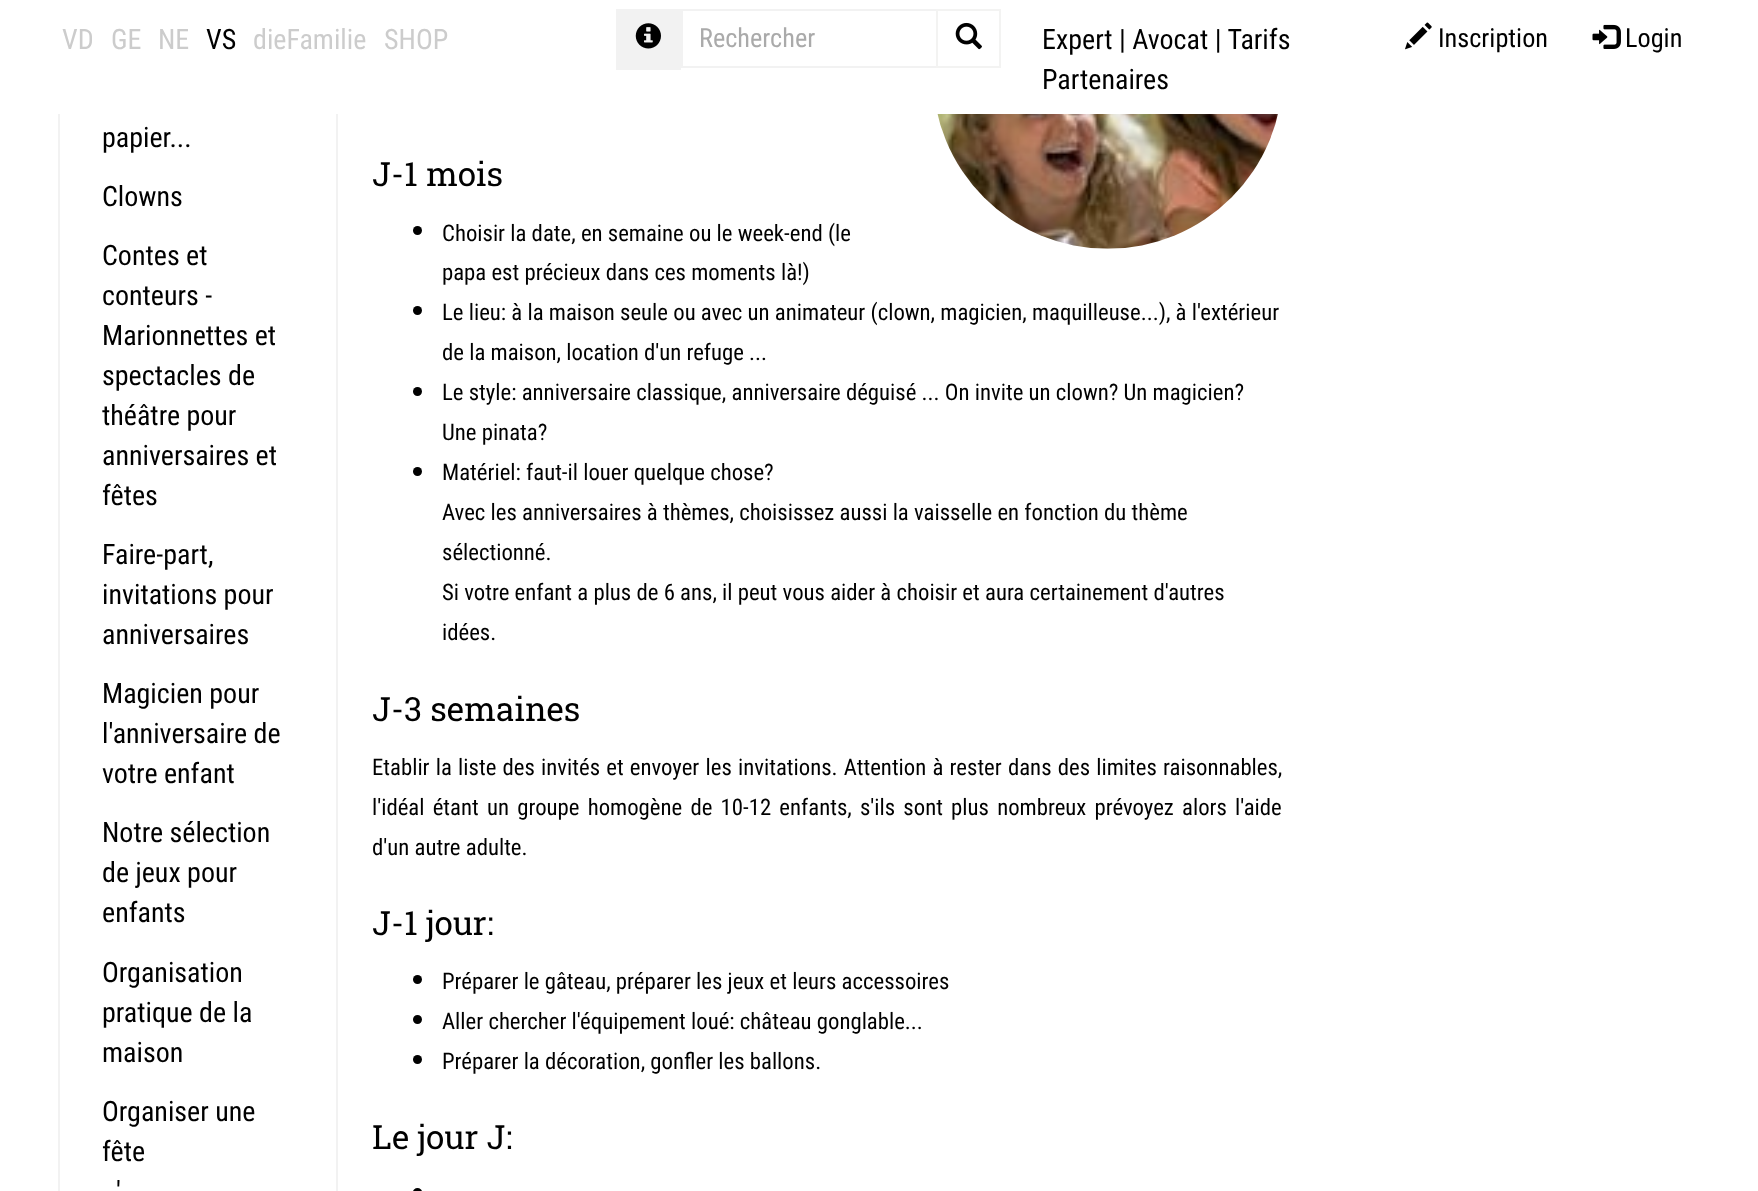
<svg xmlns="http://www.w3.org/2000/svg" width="1758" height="1191">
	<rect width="100%" height="100%" fill="#FFFFFF" />
	<rect x="59" y="-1" width="278" height="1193" fill="none" stroke="#F2F2F2" stroke-width="2" />
	<rect x="58" y="0" width="280" height="114" fill="#FFFFFF" />
	<g font-family="Roboto Condensed" font-size="28" fill="#CCCCCC">
		<text x="62" y="49">VD</text>
		<text x="111" y="49">GE</text>
		<text x="158" y="49">NE</text>
	</g>
	<text x="206" y="49" font-family="Roboto Condensed" font-size="28" fill="#000000">VS</text>
	<g font-family="Roboto Condensed" font-size="28" fill="#CCCCCC">
		<text x="253" y="49">dieFamilie</text>
		<text x="384" y="49">SHOP</text>
	</g>
	<rect x="616" y="9" width="65" height="61" fill="#F2F2F2" />
	<image x="635" y="23" width="26" height="26" href="assets/img1.png" />
	<rect x="682" y="10" width="255" height="57" fill="none" stroke="#F2F2F2" stroke-width="2" />
	<text x="699" y="47" font-family="Roboto Condensed" font-size="26.25" fill="#AAAAAA">Rechercher</text>
	<rect x="937" y="10" width="63" height="57" fill="none" stroke="#F3F3F2" stroke-width="2" />
	<image x="955" y="22" width="27" height="28" href="assets/img2.png" />
	<g font-family="Roboto Condensed" font-size="28" fill="#000000">
		<text x="1042" y="49">Expert | Avocat | Tarifs</text>
		<text x="1042" y="89">Partenaires</text>
	</g>
	<image x="1405" y="22" width="27" height="28" href="assets/img3.png" />
	<text x="1438" y="47" font-family="Roboto Condensed" font-size="26.25" fill="#000000">Inscription</text>
	<image x="1592" y="24" width="29" height="25" href="assets/img4.png" />
	<text x="1625" y="47" font-family="Roboto Condensed" font-size="26.25" fill="#000000">Login</text>
	<g font-family="Roboto Condensed" font-size="28" fill="#000000">
		<text x="102" y="147">papier...</text>
		<text x="102" y="206">Clowns</text>
		<text x="102" y="265">Contes et</text>
		<text x="102" y="305">conteurs -</text>
		<text x="102" y="345">Marionnettes et</text>
		<text x="102" y="385">spectacles de</text>
		<text x="102" y="425">théâtre pour</text>
		<text x="102" y="465">anniversaires et</text>
		<text x="102" y="505">fêtes</text>
		<text x="102" y="564">Faire-part,</text>
		<text x="102" y="604">invitations pour</text>
		<text x="102" y="644">anniversaires</text>
		<text x="102" y="703">Magicien pour</text>
		<text x="102" y="743">l'anniversaire de</text>
		<text x="102" y="783">votre enfant</text>
		<text x="102" y="842">Notre sélection</text>
		<text x="102" y="882">de jeux pour</text>
		<text x="102" y="922">enfants</text>
		<text x="102" y="982">Organisation</text>
		<text x="102" y="1022">pratique de la</text>
		<text x="102" y="1062">maison</text>
		<text x="102" y="1121">Organiser une</text>
		<text x="102" y="1161">fête</text>
		<text x="116" y="1201">'</text>
	</g>
	<image x="937" y="114" width="341" height="135" href="assets/img5.png" />
	<text x="372" y="186" font-family="Roboto Slab" font-size="33.25" fill="#000000">J-1 mois</text>
	<circle cx="417.5" cy="230.5" r="4.5" fill="#000000" />
	<g font-family="Roboto Condensed" font-size="22.75" fill="#000000">
		<text x="442" y="241">Choisir la date, en semaine ou le week-end (le</text>
		<text x="442" y="280">papa est précieux dans ces moments là!)</text>
	</g>
	<circle cx="417.5" cy="310.5" r="4.5" fill="#000000" />
	<g font-family="Roboto Condensed" font-size="22.75" fill="#000000">
		<text x="442" y="320">Le lieu: à la maison seule ou avec un animateur (clown, magicien, maquilleuse...), à l'extérieur</text>
		<text x="442" y="360">de la maison, location d'un refuge ...</text>
	</g>
	<circle cx="417.5" cy="391.5" r="4.5" fill="#000000" />
	<g font-family="Roboto Condensed" font-size="22.75" fill="#000000">
		<text x="442" y="400">Le style: anniversaire classique, anniversaire déguisé ... On invite un clown? Un magicien?</text>
		<text x="442" y="440">Une pinata?</text>
	</g>
	<circle cx="417.5" cy="471.5" r="4.5" fill="#000000" />
	<g font-family="Roboto Condensed" font-size="22.75" fill="#000000">
		<text x="442" y="480">Matériel: faut-il louer quelque chose?</text>
		<text x="442" y="520">Avec les anniversaires à thèmes, choisissez aussi la vaisselle en fonction du thème</text>
		<text x="442" y="560">sélectionné.</text>
		<text x="442" y="600">Si votre enfant a plus de 6 ans, il peut vous aider à choisir et aura certainement d'autres</text>
		<text x="442" y="640">idées.</text>
	</g>
	<text x="372" y="721" font-family="Roboto Slab" font-size="33.25" fill="#000000">J-3 semaines</text>
	<g font-family="Roboto Condensed" font-size="22.75" fill="#000000">
		<text x="372" y="775" word-spacing="1">Etablir la liste des invités et envoyer les invitations. Attention à rester dans des limites raisonnables,</text>
		<text x="372" y="815" word-spacing="3">l'idéal étant un groupe homogène de 10-12 enfants, s'ils sont plus nombreux prévoyez alors l'aide</text>
		<text x="372" y="855">d'un autre adulte.</text>
	</g>
	<text x="372" y="935" font-family="Roboto Slab" font-size="33.25" fill="#000000">J-1 jour:</text>
	<circle cx="417.5" cy="979.5" r="4.5" fill="#000000" />
	<text x="442" y="989" font-family="Roboto Condensed" font-size="22.75" fill="#000000">Préparer le gâteau, préparer les jeux et leurs accessoires</text>
	<circle cx="417.5" cy="1019.5" r="4.5" fill="#000000" />
	<text x="442" y="1029" font-family="Roboto Condensed" font-size="22.75" fill="#000000">Aller chercher l'équipement loué: château gonglable...</text>
	<circle cx="417.5" cy="1059.5" r="4.5" fill="#000000" />
	<text x="442" y="1069" font-family="Roboto Condensed" font-size="22.75" fill="#000000">Préparer la décoration, gonfler les ballons.</text>
	<text x="372" y="1149" font-family="Roboto Slab" font-size="33.25" fill="#000000">Le jour J:</text>
	<rect x="413" y="1188" width="9" height="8" rx="4.5" fill="#000000" />
</svg>
